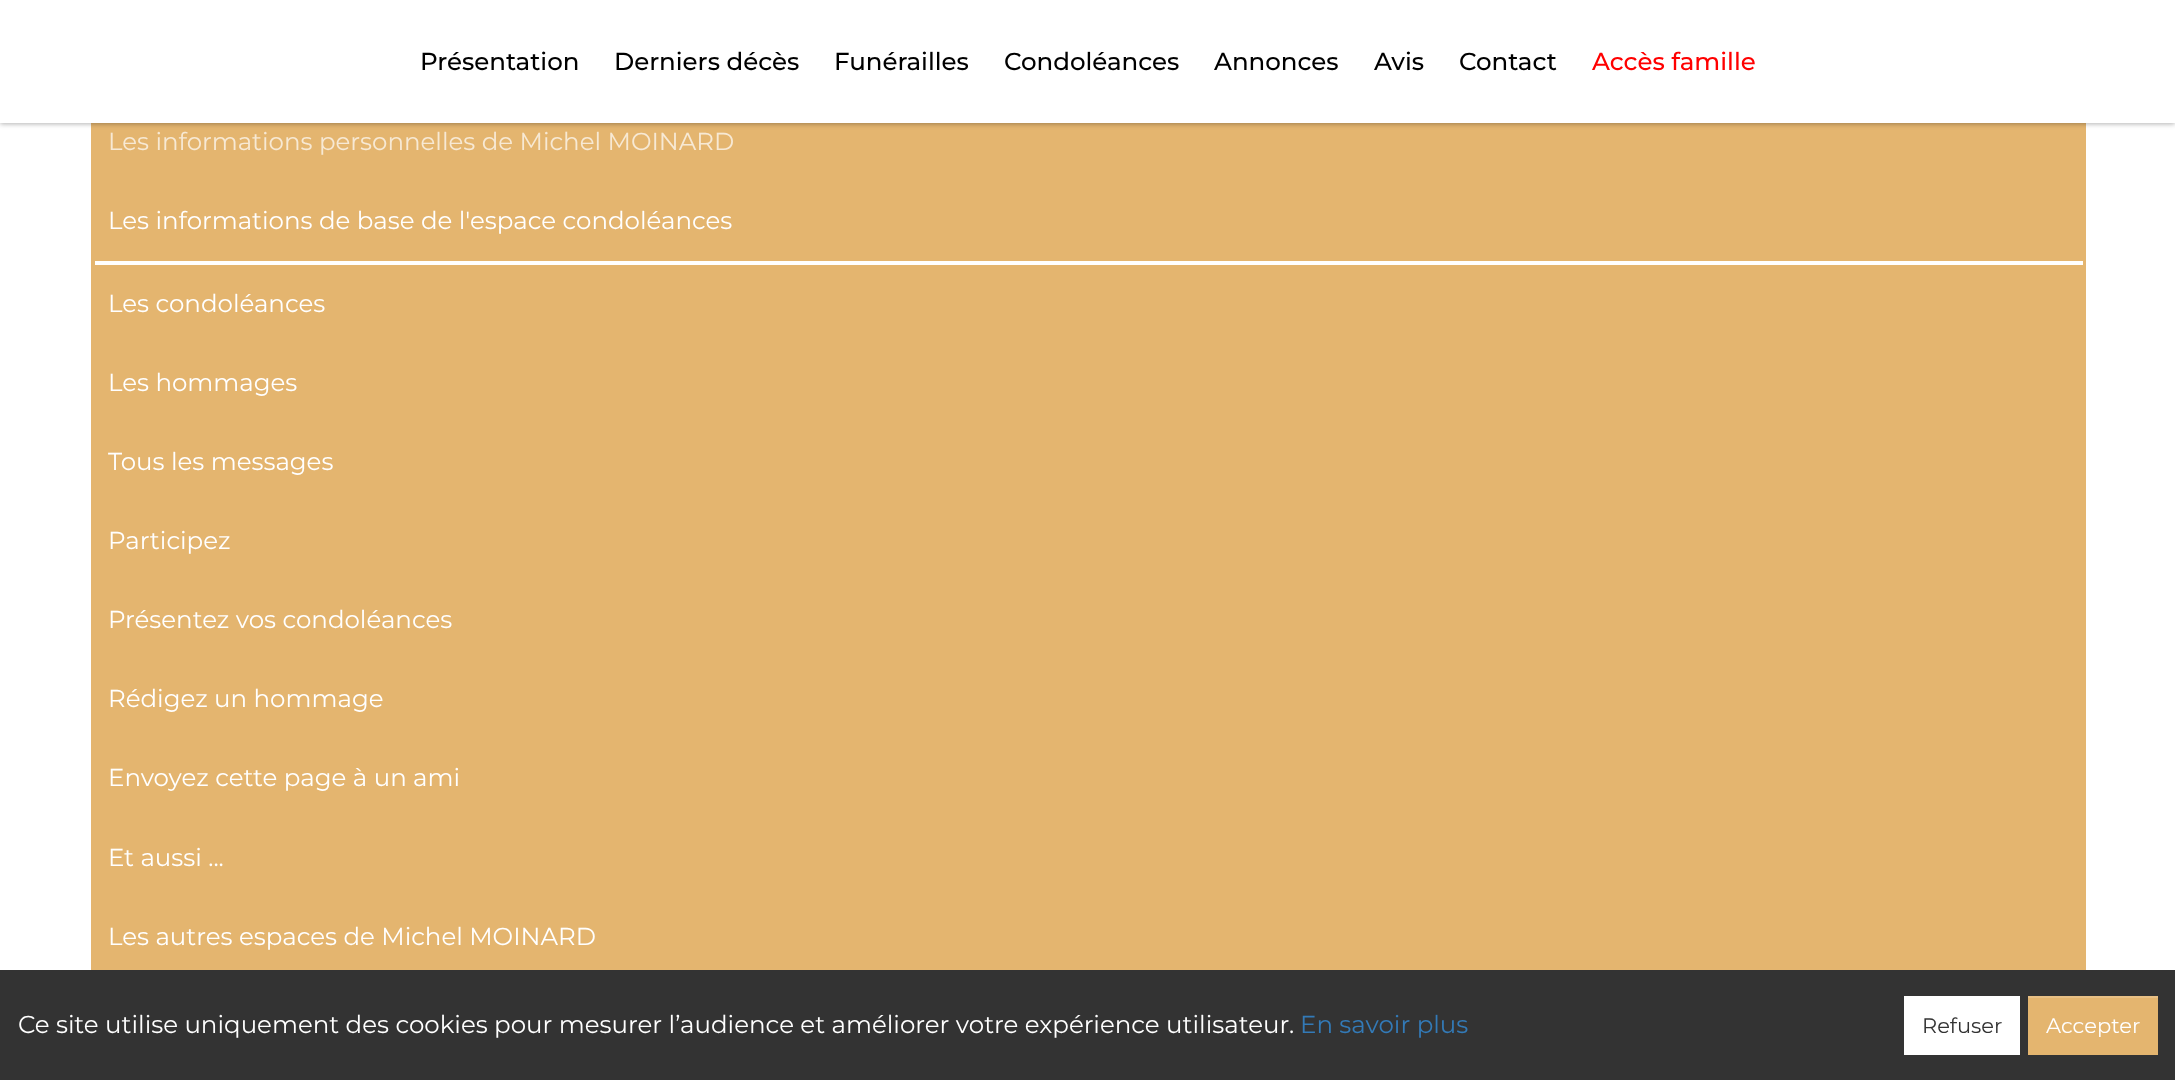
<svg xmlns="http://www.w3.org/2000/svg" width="2175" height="1080">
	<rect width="100%" height="100%" fill="#FFFFFF" />
	<rect x="91" y="123" width="1995" height="847" fill="#E4B56F" />
	<rect x="0" y="2" width="2175" height="122" fill="#000000" fill-opacity="0.3" filter="blur(2.5px)" />
	<rect x="0" y="0" width="2175" height="123" fill="#FFFFFF" />
	<g font-family="'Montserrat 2'" font-size="24.5" font-weight="100" fill="#000000">
		<text x="420" y="70">Présentation</text>
		<text x="614" y="70">Derniers décès</text>
		<text x="834" y="70">Funérailles</text>
		<text x="1004" y="70">Condoléances</text>
		<text x="1214" y="70">Annonces</text>
		<text x="1374" y="70">Avis</text>
		<text x="1459" y="70">Contact</text>
	</g>
	<text x="1592" y="70" font-family="'Montserrat 2'" font-size="24.5" font-weight="100" fill="#FF0000">Accès famille</text>
	<text x="108" y="150" font-family="Montserrat" font-size="24.5" font-weight="100" fill="#F7E9D4">Les informations personnelles de Michel MOINARD</text>
	<text x="108" y="229" font-family="Montserrat" font-size="24.5" font-weight="100" fill="#FFFFFF">Les informations de base de l'espace condoléances</text>
	<rect x="95" y="261" width="1988" height="4" fill="#FFFFFF" />
	<g font-family="Montserrat" font-size="24.5" font-weight="100" fill="#FFFFFF">
		<text x="108" y="312">Les condoléances</text>
		<text x="108" y="391">Les hommages</text>
		<text x="108" y="470">Tous les messages</text>
		<text x="108" y="549">Participez</text>
		<text x="108" y="628">Présentez vos condoléances</text>
		<text x="108" y="707">Rédigez un hommage</text>
		<text x="108" y="786">Envoyez cette page à un ami</text>
		<text x="108" y="866">Et aussi ...</text>
		<text x="108" y="945">Les autres espaces de Michel MOINARD</text>
	</g>
	<rect x="0" y="970" width="2175" height="110" fill="#333333" />
	<text x="18" y="1033" font-family="Montserrat" font-size="24.5" font-weight="100" fill="#FFFFFF">Ce site utilise uniquement des cookies pour mesurer l’audience et améliorer votre expérience utilisateur.</text>
	<text x="1300" y="1033" font-family="Montserrat" font-size="24.5" font-weight="100" fill="#337AB7">En savoir plus</text>
	<rect x="1904" y="996" width="116" height="59" fill="#FFFFFF" />
	<text x="1922" y="1033" font-family="Montserrat" font-size="21" font-weight="100" fill="#333333">Refuser</text>
	<rect x="2028" y="998" width="130" height="57" fill="#E4B56F" />
	<rect x="2028" y="996" width="130" height="2" fill="#E8C085" />
	<text x="2046" y="1033" font-family="Montserrat" font-size="21" font-weight="100" fill="#FFFFFF">Accepter</text>
</svg>
